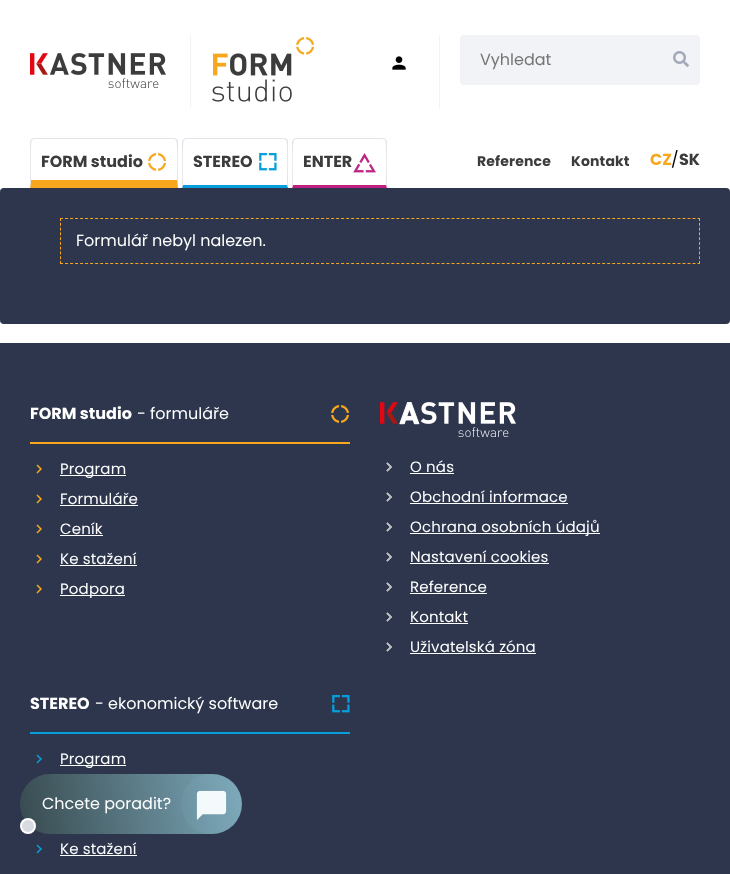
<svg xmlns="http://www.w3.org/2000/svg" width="730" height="874">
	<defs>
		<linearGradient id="g1" gradientUnits="userSpaceOnUse" x1="18" y1="824" x2="311" y2="772"><stop offset="0" stop-color="#384A4F" /><stop offset="1" stop-color="#90C4D9" /></linearGradient>
	</defs>
	<rect width="100%" height="100%" fill="#FFFFFF" />
	<image x="30" y="53" width="136" height="35" href="assets/img1.png" />
	<rect x="190" y="35" width="1" height="73" fill="#F2F3F7" />
	<image x="212" y="37" width="102" height="65" href="assets/img2.png" />
	<image x="392" y="56" width="14" height="14" href="assets/img3.png" />
	<rect x="439" y="35" width="1" height="73" fill="#F2F3F7" />
	<rect x="460" y="35" width="240" height="50" rx="4" fill="#F2F3F7" />
	<text x="480" y="65" font-family="Poppins" font-size="16" fill="#757575">Vyhledat</text>
	<image x="673" y="51" width="16" height="16" href="assets/img4.png" />
	<image x="148" y="153" width="18" height="18" href="assets/img5.png" />
	<path d="M34 138L31 139L32 140L34 139H174L176 140L177 139L174 138Z" fill="#E2E4E9" />
	<path d="M178 188V142C178 141 178 140 177 139L176 140C178 142 177 175 177 180Z" fill="#E2E4E9" />
	<path d="M178 188L177 180H31L30 188Z" fill="#F6A71D" />
	<path d="M30 188L31 180C31 175 30 142 32 140L31 139L30 142Z" fill="#E2E4E9" />
	<text x="41" y="167" font-family="Poppins" font-size="16" font-weight="700" fill="#3C3C3C">FORM studio</text>
	<image x="259" y="153" width="18" height="18" href="assets/img6.png" />
	<path d="M186 138L183 139L184 140L186 139H284L286 140L287 139L284 138Z" fill="#E2E4E9" />
	<path d="M288 188V142C288 141 288 140 287 139L286 140C288 142 287 179 287 185Z" fill="#E2E4E9" />
	<path d="M288 188L287 185H183L182 188Z" fill="#069EDB" />
	<path d="M182 188L183 185C183 179 182 142 184 140L183 139L182 142Z" fill="#E2E4E9" />
	<text x="193" y="167" font-family="Poppins" font-size="16" font-weight="700" fill="#3C3C3C">STEREO</text>
	<image x="353" y="153" width="23" height="20" href="assets/img7.png" />
	<path d="M296 138L293 139L294 140L296 139H383L385 140L386 139L383 138Z" fill="#E2E4E9" />
	<path d="M387 188V142C387 141 386 140 386 139L385 140C387 142 386 179 386 185Z" fill="#E2E4E9" />
	<path d="M387 188L386 185H293L292 188Z" fill="#C02081" />
	<path d="M292 188L293 185C293 179 292 142 294 140L293 139L292 142Z" fill="#E2E4E9" />
	<text x="303" y="167" font-family="Poppins" font-size="16" font-weight="700" fill="#3C3C3C">ENTER</text>
	<g font-family="Poppins" font-size="14" font-weight="700" letter-spacing="0.15" fill="#3C3C3C">
		<text x="477" y="166">Reference</text>
		<text x="571" y="166">Kontakt</text>
	</g>
	<text x="650" y="165" font-family="Poppins" font-size="16" font-weight="700" fill="#F6A71D">CZ</text>
	<text x="671" y="165" font-family="Poppins" font-size="16" fill="#000000">/</text>
	<text x="679" y="165" font-family="Poppins" font-size="16" font-weight="700" fill="#3C3C3C">SK</text>
	<rect x="0" y="188" width="730" height="136" rx="4" fill="#2D364C" />
	<path d="M60 218.5H700" fill="none" stroke="#F6A71D" stroke-dasharray="3 2.02" />
	<path d="M699.5 218V264" fill="none" stroke="#F6A71D" stroke-dasharray="3 1.78" />
	<path d="M60 263.5H700" fill="none" stroke="#F6A71D" stroke-dasharray="3 2.02" />
	<path d="M60.5 218V264" fill="none" stroke="#F6A71D" stroke-dasharray="3 1.78" />
	<text x="76" y="246" font-family="Poppins" font-size="16" fill="#FFFFFF">Formulář nebyl nalezen.</text>
	<rect x="0" y="343" width="730" height="531" fill="#2D364C" />
	<image x="331" y="405" width="18" height="18" href="assets/img8.png" />
	<text x="30" y="419" font-family="Poppins" font-size="16" font-weight="700" fill="#FFFFFF">FORM studio</text>
	<text x="137" y="419" font-family="Poppins" font-size="16" fill="#FFFFFF">- formuláře</text>
	<rect x="30" y="442" width="320" height="2" fill="#F6A71D" />
	<image x="36" y="464" width="6" height="10" href="assets/img9.png" />
	<rect x="60" y="475" width="66" height="1" fill="#FFFFFF" />
	<text x="60" y="474" font-family="Poppins" font-size="15" letter-spacing="0.15" fill="#FFFFFF">Program</text>
	<image x="36" y="494" width="6" height="10" href="assets/img9.png" />
	<text x="60" y="504" font-family="Poppins" font-size="15" letter-spacing="0.15" fill="#FFFFFF">Formuláře</text>
	<rect x="60" y="505" width="78" height="1" fill="#FFFFFF" />
	<image x="36" y="524" width="6" height="10" href="assets/img9.png" />
	<text x="60" y="534" font-family="Poppins" font-size="15" letter-spacing="0.15" fill="#FFFFFF">Ceník</text>
	<rect x="60" y="535" width="43" height="1" fill="#FFFFFF" />
	<image x="36" y="554" width="6" height="10" href="assets/img9.png" />
	<text x="60" y="564" font-family="Poppins" font-size="15" letter-spacing="0.15" fill="#FFFFFF">Ke stažení</text>
	<rect x="60" y="565" width="77" height="1" fill="#FFFFFF" />
	<image x="36" y="584" width="6" height="10" href="assets/img9.png" />
	<rect x="60" y="595" width="65" height="1" fill="#FFFFFF" />
	<text x="60" y="594" font-family="Poppins" font-size="15" letter-spacing="0.15" fill="#FFFFFF">Podpora</text>
	<image x="380" y="402" width="136" height="35" href="assets/img10.png" />
	<image x="386" y="462" width="6" height="10" href="assets/img11.png" />
	<text x="410" y="472" font-family="Poppins" font-size="15" letter-spacing="0.15" fill="#FFFFFF">O nás</text>
	<rect x="410" y="473" width="44" height="1" fill="#FFFFFF" />
	<image x="386" y="492" width="6" height="10" href="assets/img11.png" />
	<text x="410" y="502" font-family="Poppins" font-size="15" letter-spacing="0.15" fill="#FFFFFF">Obchodní informace</text>
	<rect x="410" y="503" width="158" height="1" fill="#FFFFFF" />
	<image x="386" y="522" width="6" height="10" href="assets/img11.png" />
	<rect x="410" y="533" width="190" height="1" fill="#FFFFFF" />
	<text x="410" y="532" font-family="Poppins" font-size="15" letter-spacing="0.15" fill="#FFFFFF">Ochrana osobních údajů</text>
	<image x="386" y="552" width="6" height="10" href="assets/img11.png" />
	<text x="410" y="562" font-family="Poppins" font-size="15" letter-spacing="0.15" fill="#FFFFFF">Nastavení cookies</text>
	<rect x="410" y="563" width="139" height="1" fill="#FFFFFF" />
	<image x="386" y="582" width="6" height="10" href="assets/img11.png" />
	<text x="410" y="592" font-family="Poppins" font-size="15" letter-spacing="0.15" fill="#FFFFFF">Reference</text>
	<rect x="410" y="593" width="77" height="1" fill="#FFFFFF" />
	<image x="386" y="612" width="6" height="10" href="assets/img11.png" />
	<text x="410" y="622" font-family="Poppins" font-size="15" letter-spacing="0.15" fill="#FFFFFF">Kontakt</text>
	<rect x="410" y="623" width="58" height="1" fill="#FFFFFF" />
	<image x="386" y="642" width="6" height="10" href="assets/img11.png" />
	<text x="410" y="652" font-family="Poppins" font-size="15" letter-spacing="0.15" fill="#FFFFFF">Uživatelská zóna</text>
	<rect x="410" y="653" width="126" height="1" fill="#FFFFFF" />
	<image x="332" y="695" width="18" height="18" href="assets/img12.png" />
	<text x="30" y="709" font-family="Poppins" font-size="16" font-weight="700" fill="#FFFFFF">STEREO</text>
	<text x="95" y="709" font-family="Poppins" font-size="16" fill="#FFFFFF">- ekonomický software</text>
	<rect x="30" y="732" width="320" height="2" fill="#069EDB" />
	<image x="36" y="754" width="6" height="10" href="assets/img13.png" />
	<rect x="60" y="765" width="66" height="1" fill="#FFFFFF" />
	<text x="60" y="764" font-family="Poppins" font-size="15" letter-spacing="0.15" fill="#FFFFFF">Program</text>
	<image x="36" y="844" width="6" height="10" href="assets/img13.png" />
	<text x="60" y="854" font-family="Poppins" font-size="15" letter-spacing="0.15" fill="#FFFFFF">Ke stažení</text>
	<rect x="60" y="855" width="77" height="1" fill="#FFFFFF" />
	<rect x="20" y="774" width="222" height="60" rx="30" fill="url(#g1)" />
	<text x="42" y="809" font-family="Poppins" font-size="16" fill="#FFFFFF">Chcete poradit?</text>
	<image x="196" y="790" width="31" height="30" href="assets/img14.png" />
	<circle cx="211" cy="804" r="30" fill="#90C4D9" fill-opacity="0.1" />
	<circle cx="28" cy="826" r="8" fill="#FFFFFF" />
	<circle cx="28" cy="826" r="6" fill="#D7DAE1" />
</svg>
